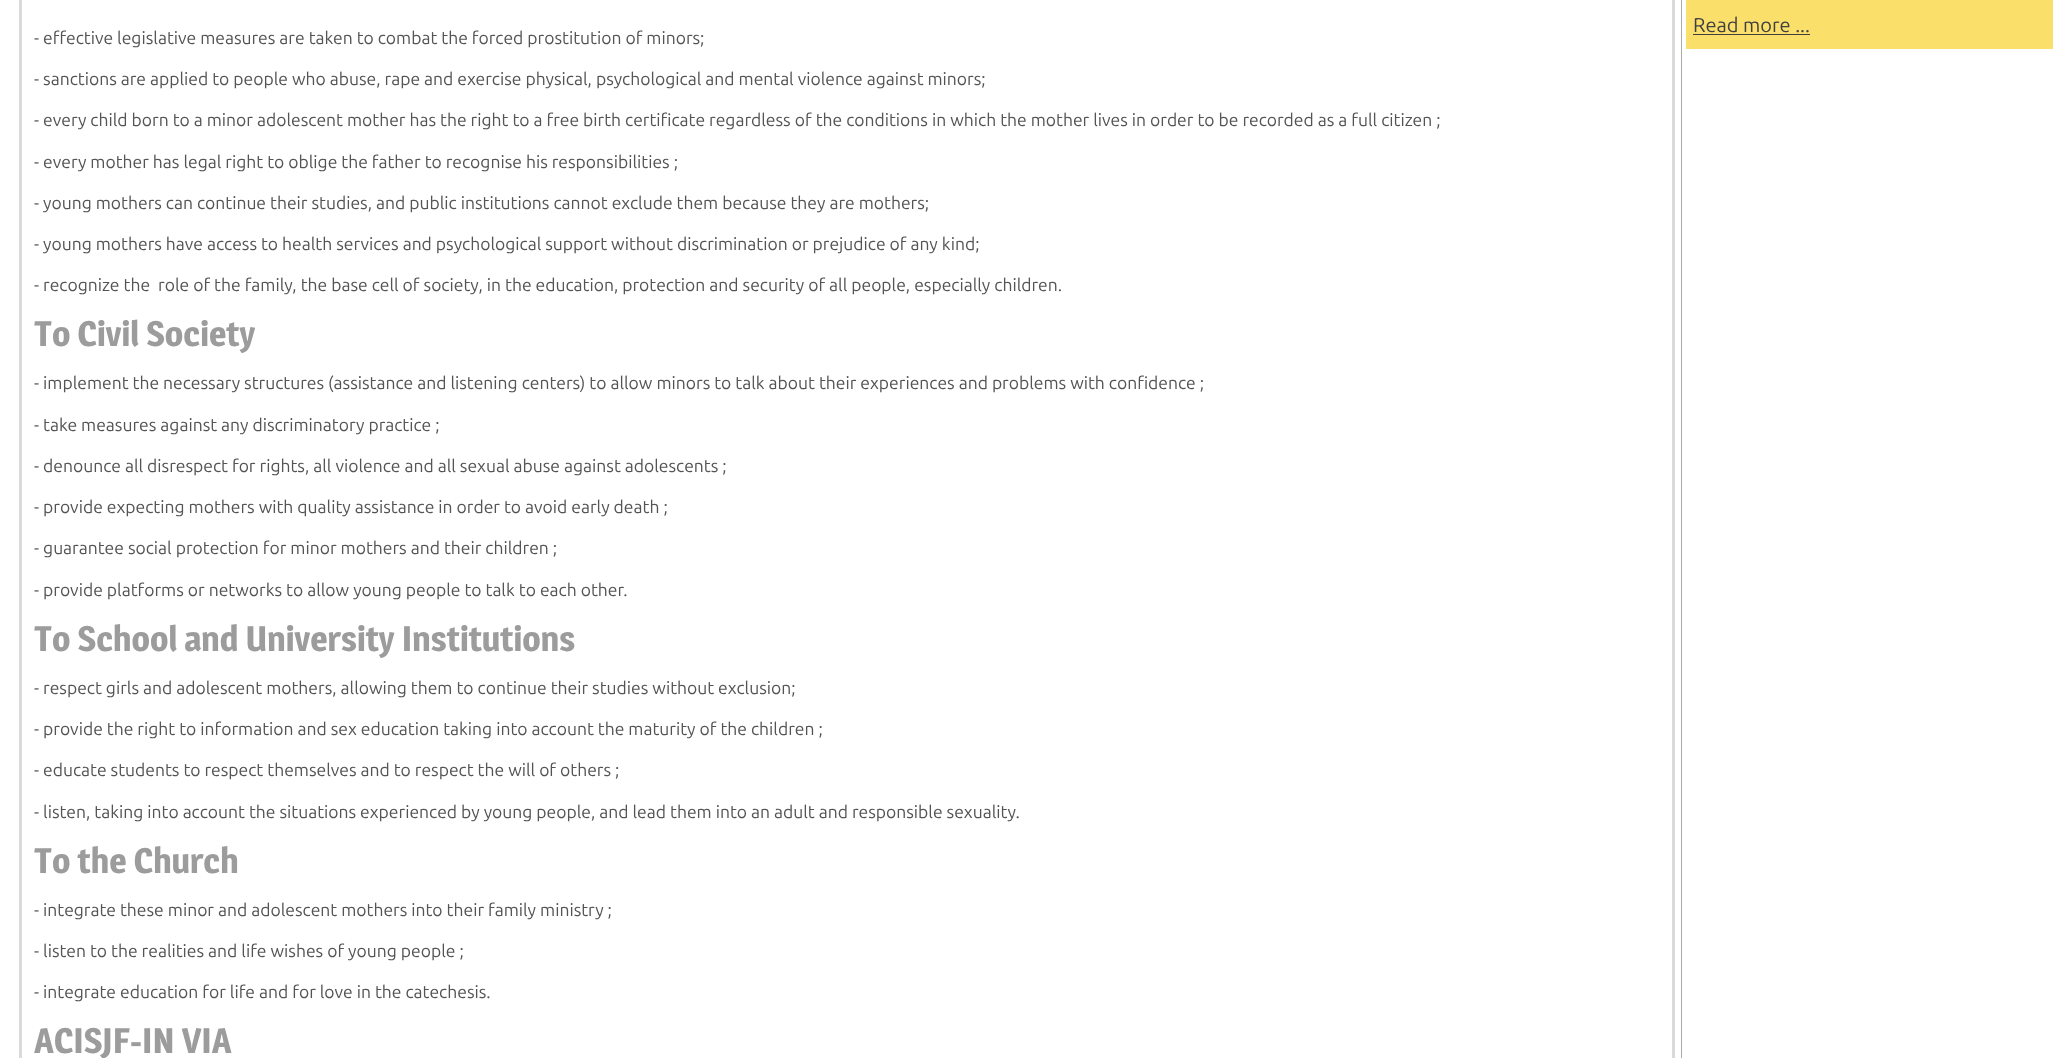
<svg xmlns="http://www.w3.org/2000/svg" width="2068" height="1058">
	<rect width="100%" height="100%" fill="#FFFFFF" />
	<rect x="1681" y="0" width="1" height="1058" fill="#ABABAB" />
	<rect x="1686" y="0" width="367" height="49" fill="#FAE06B" />
	<text x="1693" y="32" font-family="Ubuntu" font-size="20" fill="#404040">Read more ...</text>
	<rect x="1693" y="34" width="117" height="1" fill="#404040" />
	<rect x="20.5" y="-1.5" width="1653" height="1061" fill="none" stroke="#DADADA" stroke-width="3" />
	<g font-family="Ubuntu" font-size="17.5" fill="#545454">
		<text x="34" y="44">- effective legislative measures are taken to combat the forced prostitution of minors;</text>
		<text x="34" y="85">- sanctions are applied to people who abuse, rape and exercise physical, psychological and mental violence against minors;</text>
		<text x="34" y="126">- every child born to a minor adolescent mother has the right to a free birth certificate regardless of the conditions in which the mother lives in order to be recorded as a full citizen ;</text>
		<text x="34" y="168">- every mother has legal right to oblige the father to recognise his responsibilities ;</text>
		<text x="34" y="209">- young mothers can continue their studies, and public institutions cannot exclude them because they are mothers;</text>
		<text x="34" y="250">- young mothers have access to health services and psychological support without discrimination or prejudice of any kind;</text>
		<text x="34" y="291" xml:space="preserve">- recognize the  role of the family, the base cell of society, in the education, protection and security of all people, especially children.</text>
	</g>
	<text x="34" y="346" font-family="Magra" font-size="35" font-weight="600" fill="#9C9C9C">To Civil Society</text>
	<g font-family="Ubuntu" font-size="17.5" fill="#545454">
		<text x="34" y="389">- implement the necessary structures (assistance and listening centers) to allow minors to talk about their experiences and problems with confidence ;</text>
		<text x="34" y="431">- take measures against any discriminatory practice ;</text>
		<text x="34" y="472">- denounce all disrespect for rights, all violence and all sexual abuse against adolescents ;</text>
		<text x="34" y="513">- provide expecting mothers with quality assistance in order to avoid early death ;</text>
		<text x="34" y="554">- guarantee social protection for minor mothers and their children ;</text>
		<text x="34" y="596">- provide platforms or networks to allow young people to talk to each other.</text>
	</g>
	<text x="34" y="651" font-family="Magra" font-size="35" font-weight="600" fill="#9C9C9C">To School and University Institutions</text>
	<g font-family="Ubuntu" font-size="17.5" fill="#545454">
		<text x="34" y="694">- respect girls and adolescent mothers, allowing them to continue their studies without exclusion;</text>
		<text x="34" y="735">- provide the right to information and sex education taking into account the maturity of the children ;</text>
		<text x="34" y="776">- educate students to respect themselves and to respect the will of others ;</text>
		<text x="34" y="818">- listen, taking into account the situations experienced by young people, and lead them into an adult and responsible sexuality.</text>
	</g>
	<text x="34" y="873" font-family="Magra" font-size="35" font-weight="600" fill="#9C9C9C">To the Church</text>
	<g font-family="Ubuntu" font-size="17.5" fill="#545454">
		<text x="34" y="916">- integrate these minor and adolescent mothers into their family ministry ;</text>
		<text x="34" y="957">- listen to the realities and life wishes of young people ;</text>
		<text x="34" y="998">- integrate education for life and for love in the catechesis.</text>
	</g>
	<text x="34" y="1053" font-family="Magra" font-size="35" font-weight="600" fill="#9C9C9C">ACISJF-IN VIA</text>
</svg>
